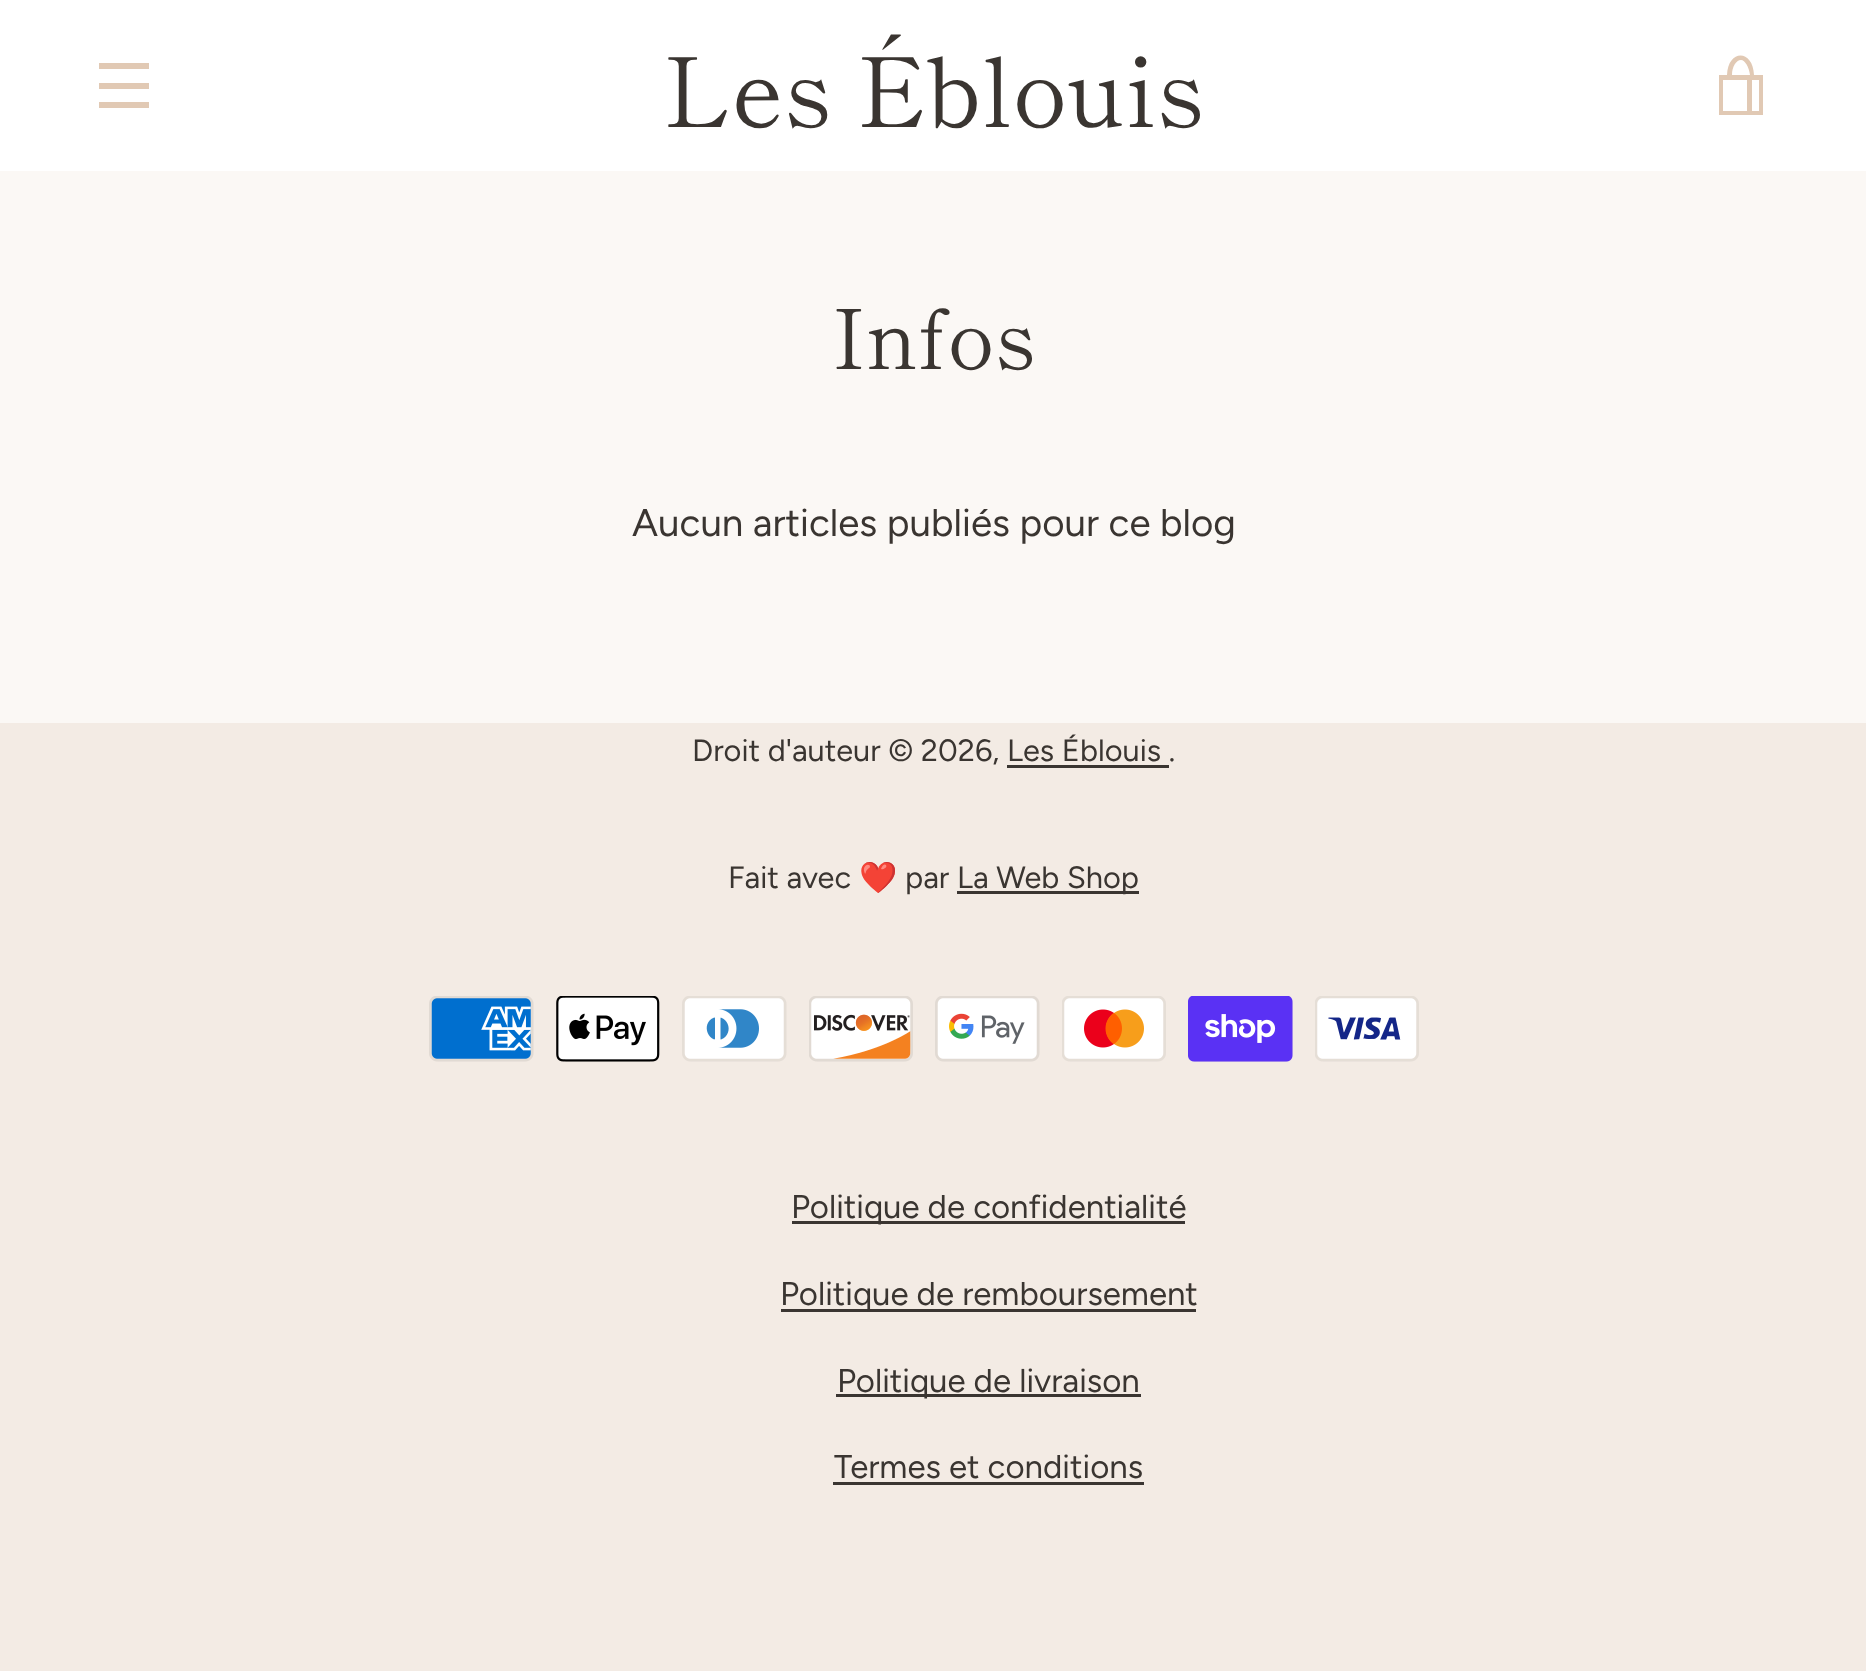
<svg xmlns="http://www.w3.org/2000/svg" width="1866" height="1671">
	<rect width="100%" height="100%" fill="#F3EBE4" />
	<rect x="0" y="0" width="1866" height="171" fill="#FFFFFF" />
	<rect x="99" y="63" width="50" height="6" fill="#E1C9B4" />
	<rect x="99" y="83" width="50" height="6" fill="#E1C9B4" />
	<rect x="99" y="102" width="50" height="6" fill="#E1C9B4" />
	<text x="663" y="127" font-family="Shippori Mincho" font-size="96.25" fill="#3A3531">Les Éblouis</text>
	<path d="M1754 75C1753 49 1728 49 1727 75H1719V115H1763V75ZM1741 60C1745 60 1749 67 1750 75H1732C1732 67 1736 60 1741 60ZM1723 111V80H1747V111ZM1759 111H1752V80H1759Z" fill="#E1C9B4" />
	<rect x="0" y="171" width="1866" height="552" fill="#FBF8F5" />
	<text x="832" y="369" font-family="Shippori Mincho" font-size="82.5" fill="#3A3531">Infos</text>
	<text x="632" y="536" font-family="Figtree" font-size="38.5" fill="#3A3531">Aucun articles publiés pour ce blog</text>
	<g font-family="Figtree" font-size="30.75" fill="#3A3531">
		<text x="692" y="761">Droit d'auteur © 2026,</text>
		<text x="1007" y="761">Les Éblouis .</text>
	</g>
	<rect x="1007" y="765" width="162" height="3" fill="#3A3531" />
	<text x="728" y="888" font-family="Figtree" font-size="30.75" fill="#3A3531">Fait avec</text>
	<text x="859" y="888" font-family="Noto Color Emoji" font-size="30.75" fill="#3A3531">❤️</text>
	<text x="905" y="888" font-family="Figtree" font-size="30.75" fill="#3A3531">par</text>
	<rect x="957" y="891" width="182" height="3" fill="#3A3531" />
	<text x="957" y="888" font-family="Figtree" font-size="30.75" fill="#3A3531">La Web Shop</text>
	<image x="429" y="996" width="105" height="66" href="assets/img1.png" />
	<image x="556" y="996" width="104" height="66" href="assets/img2.png" />
	<image x="682" y="996" width="105" height="66" href="assets/img3.png" />
	<image x="809" y="996" width="104" height="66" href="assets/img4.png" />
	<image x="935" y="996" width="105" height="66" href="assets/img5.png" />
	<image x="1062" y="996" width="104" height="66" href="assets/img6.png" />
	<image x="1188" y="996" width="105" height="66" href="assets/img7.png" />
	<image x="1315" y="996" width="104" height="66" href="assets/img8.png" />
	<rect x="792" y="1221" width="393" height="3" fill="#3A3531" />
	<text x="791" y="1218" font-family="Figtree" font-size="33" fill="#3A3531">Politique de confidentialité</text>
	<rect x="781" y="1309" width="415" height="3" fill="#3A3531" />
	<text x="780" y="1305" font-family="Figtree" font-size="33" fill="#3A3531">Politique de remboursement</text>
	<rect x="836" y="1394" width="305" height="3" fill="#3A3531" />
	<g font-family="Figtree" font-size="33" fill="#3A3531">
		<text x="837" y="1392">Politique de livraison</text>
		<text x="834" y="1478">Termes et conditions</text>
	</g>
	<rect x="833" y="1482" width="311" height="3" fill="#3A3531" />
</svg>
